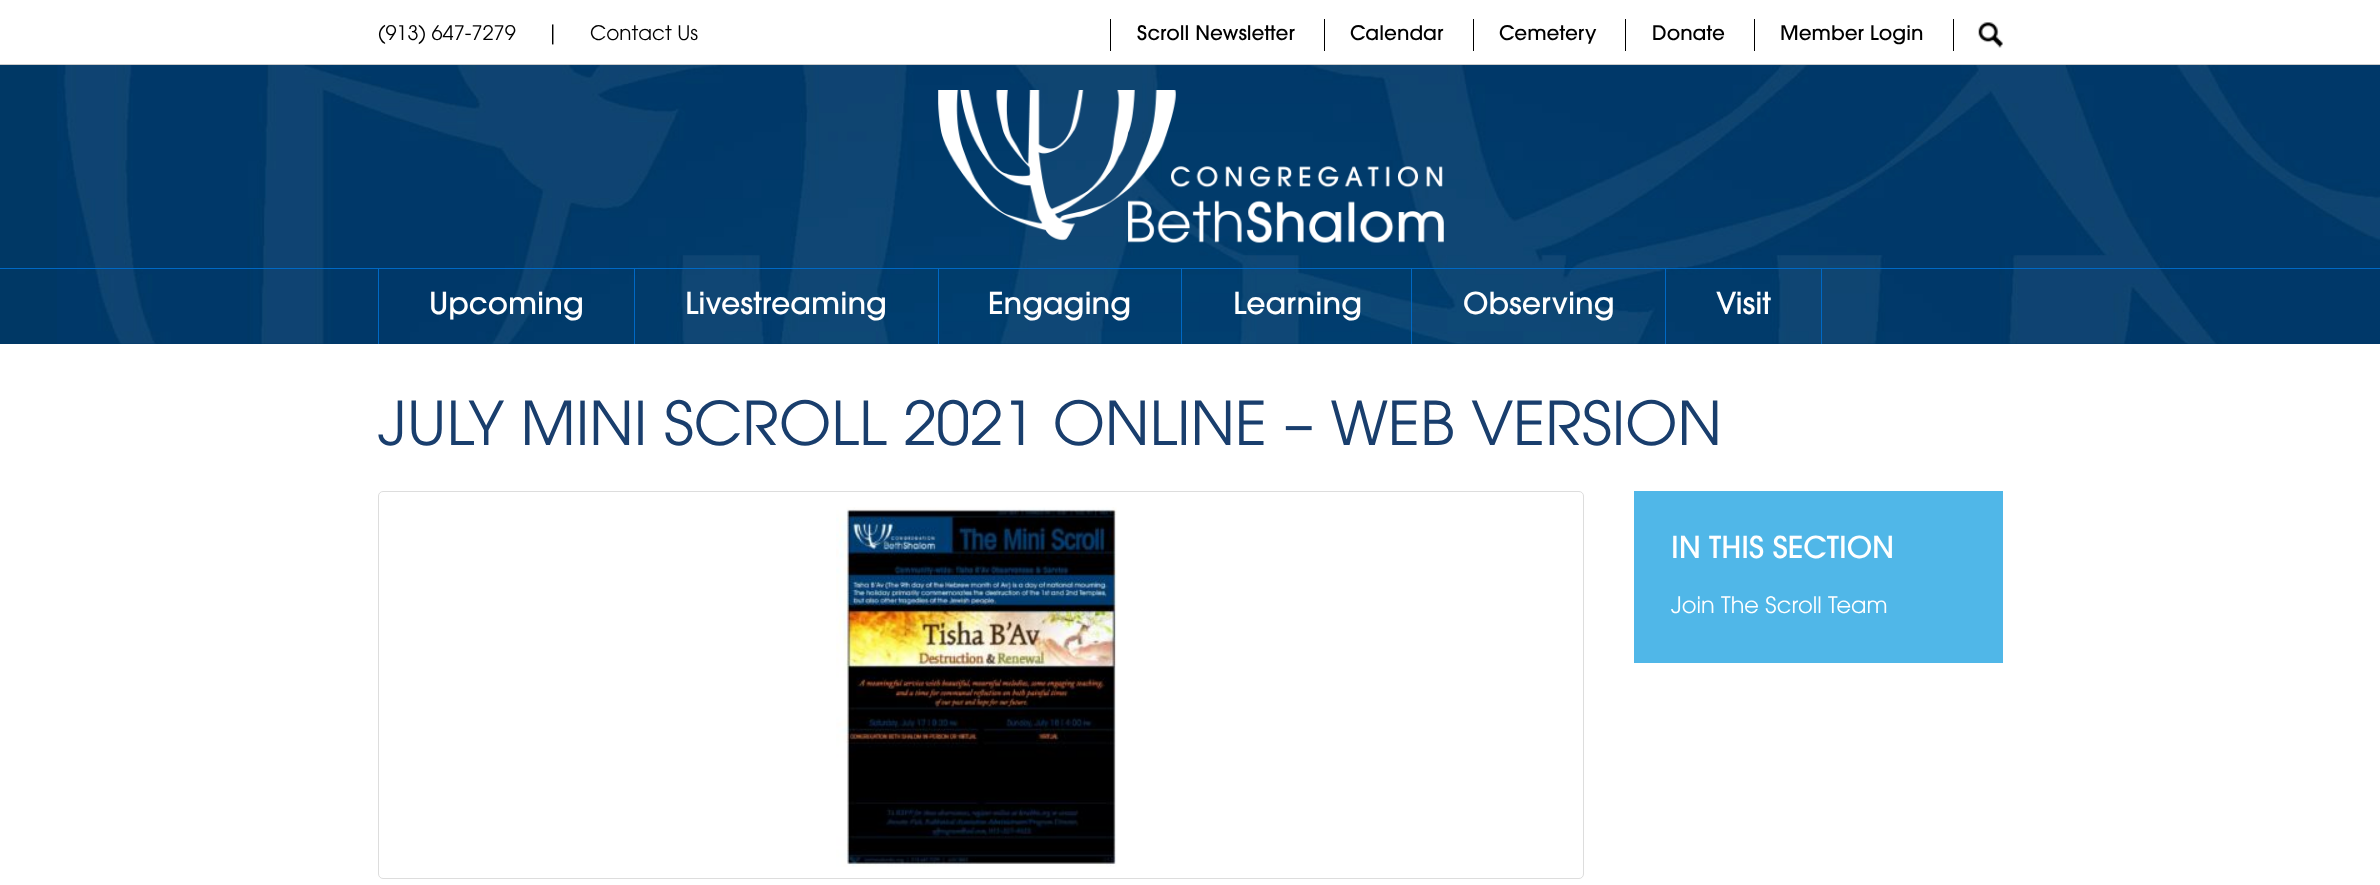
<svg xmlns="http://www.w3.org/2000/svg" width="2380" height="885">
	<rect width="100%" height="100%" fill="#003865" />
	<rect x="0" y="0" width="2380" height="64" fill="#FFFFFF" />
	<rect x="0" y="64" width="2380" height="1" fill="#CCCCCC" />
	<g font-family="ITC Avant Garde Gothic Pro" font-size="20" font-weight="300" fill="#000000">
		<text x="378" y="40">(913) 647-7279</text>
		<text x="546" y="40">|</text>
		<text x="590" y="40">Contact Us</text>
	</g>
	<rect x="1110" y="19" width="1" height="32" fill="#000000" />
	<text x="1137" y="40" font-family="ITC Avant Garde Gothic Pro" font-size="20" font-weight="500" fill="#000000">Scroll Newsletter</text>
	<rect x="1324" y="19" width="1" height="32" fill="#000000" />
	<text x="1350" y="40" font-family="ITC Avant Garde Gothic Pro" font-size="20" font-weight="500" fill="#000000">Calendar</text>
	<rect x="1473" y="19" width="1" height="32" fill="#000000" />
	<text x="1499" y="40" font-family="ITC Avant Garde Gothic Pro" font-size="20" font-weight="500" fill="#000000">Cemetery</text>
	<rect x="1625" y="19" width="1" height="32" fill="#000000" />
	<text x="1652" y="40" font-family="ITC Avant Garde Gothic Pro" font-size="20" font-weight="500" fill="#000000">Donate</text>
	<rect x="1754" y="19" width="1" height="32" fill="#000000" />
	<text x="1780" y="40" font-family="ITC Avant Garde Gothic Pro" font-size="20" font-weight="500" fill="#000000">Member Login</text>
	<rect x="1953" y="19" width="1" height="32" fill="#000000" />
	<image x="1978" y="22" width="25" height="26" href="assets/img1.png" />
	<image x="57" y="65" width="2323" height="279" href="assets/img2.png" />
	<image x="938" y="90" width="506" height="153" href="assets/img3.png" />
	<rect x="0" y="268" width="2380" height="1" fill="#0069C5" />
	<rect x="378" y="269" width="1" height="75" fill="#0069C5" />
	<rect x="634" y="269" width="1" height="75" fill="#0069C5" />
	<text x="429" y="314" font-family="ITC Avant Garde Gothic Pro" font-size="30" font-weight="500" fill="#FFFFFF">Upcoming</text>
	<rect x="938" y="269" width="1" height="75" fill="#0069C5" />
	<text x="685" y="314" font-family="ITC Avant Garde Gothic Pro" font-size="30" font-weight="500" fill="#FFFFFF">Livestreaming</text>
	<rect x="1181" y="269" width="1" height="75" fill="#0069C5" />
	<text x="988" y="314" font-family="ITC Avant Garde Gothic Pro" font-size="30" font-weight="500" fill="#FFFFFF">Engaging</text>
	<rect x="1411" y="269" width="1" height="75" fill="#0069C5" />
	<text x="1233" y="314" font-family="ITC Avant Garde Gothic Pro" font-size="30" font-weight="500" fill="#FFFFFF">Learning</text>
	<rect x="1665" y="269" width="1" height="75" fill="#0069C5" />
	<text x="1463" y="314" font-family="ITC Avant Garde Gothic Pro" font-size="30" font-weight="500" fill="#FFFFFF">Observing</text>
	<rect x="1821" y="269" width="1" height="75" fill="#0069C5" />
	<text x="1716" y="314" font-family="ITC Avant Garde Gothic Pro" font-size="30" font-weight="500" fill="#FFFFFF">Visit</text>
	<rect x="0" y="344" width="2380" height="541" fill="#FFFFFF" />
	<text x="378" y="445" font-family="ITC Avant Garde Gothic Pro" font-size="60" font-weight="300" fill="#193E6D">JULY MINI SCROLL 2021 ONLINE – WEB VERSION</text>
	<rect x="378.5" y="491.5" width="1205" height="387" rx="4.5" fill="none" stroke="#DDDDDD" />
	<image x="836" y="507" width="281" height="360" href="assets/img4.png" />
	<rect x="1634" y="491" width="369" height="172" fill="#50B7E8" />
	<text x="1671" y="558" font-family="ITC Avant Garde Gothic Pro" font-size="30" font-weight="500" fill="#FFFFFF">IN THIS SECTION</text>
	<text x="1671" y="613" font-family="ITC Avant Garde Gothic Pro" font-size="22.5" font-weight="300" fill="#FFFFFF">Join The Scroll Team</text>
</svg>
